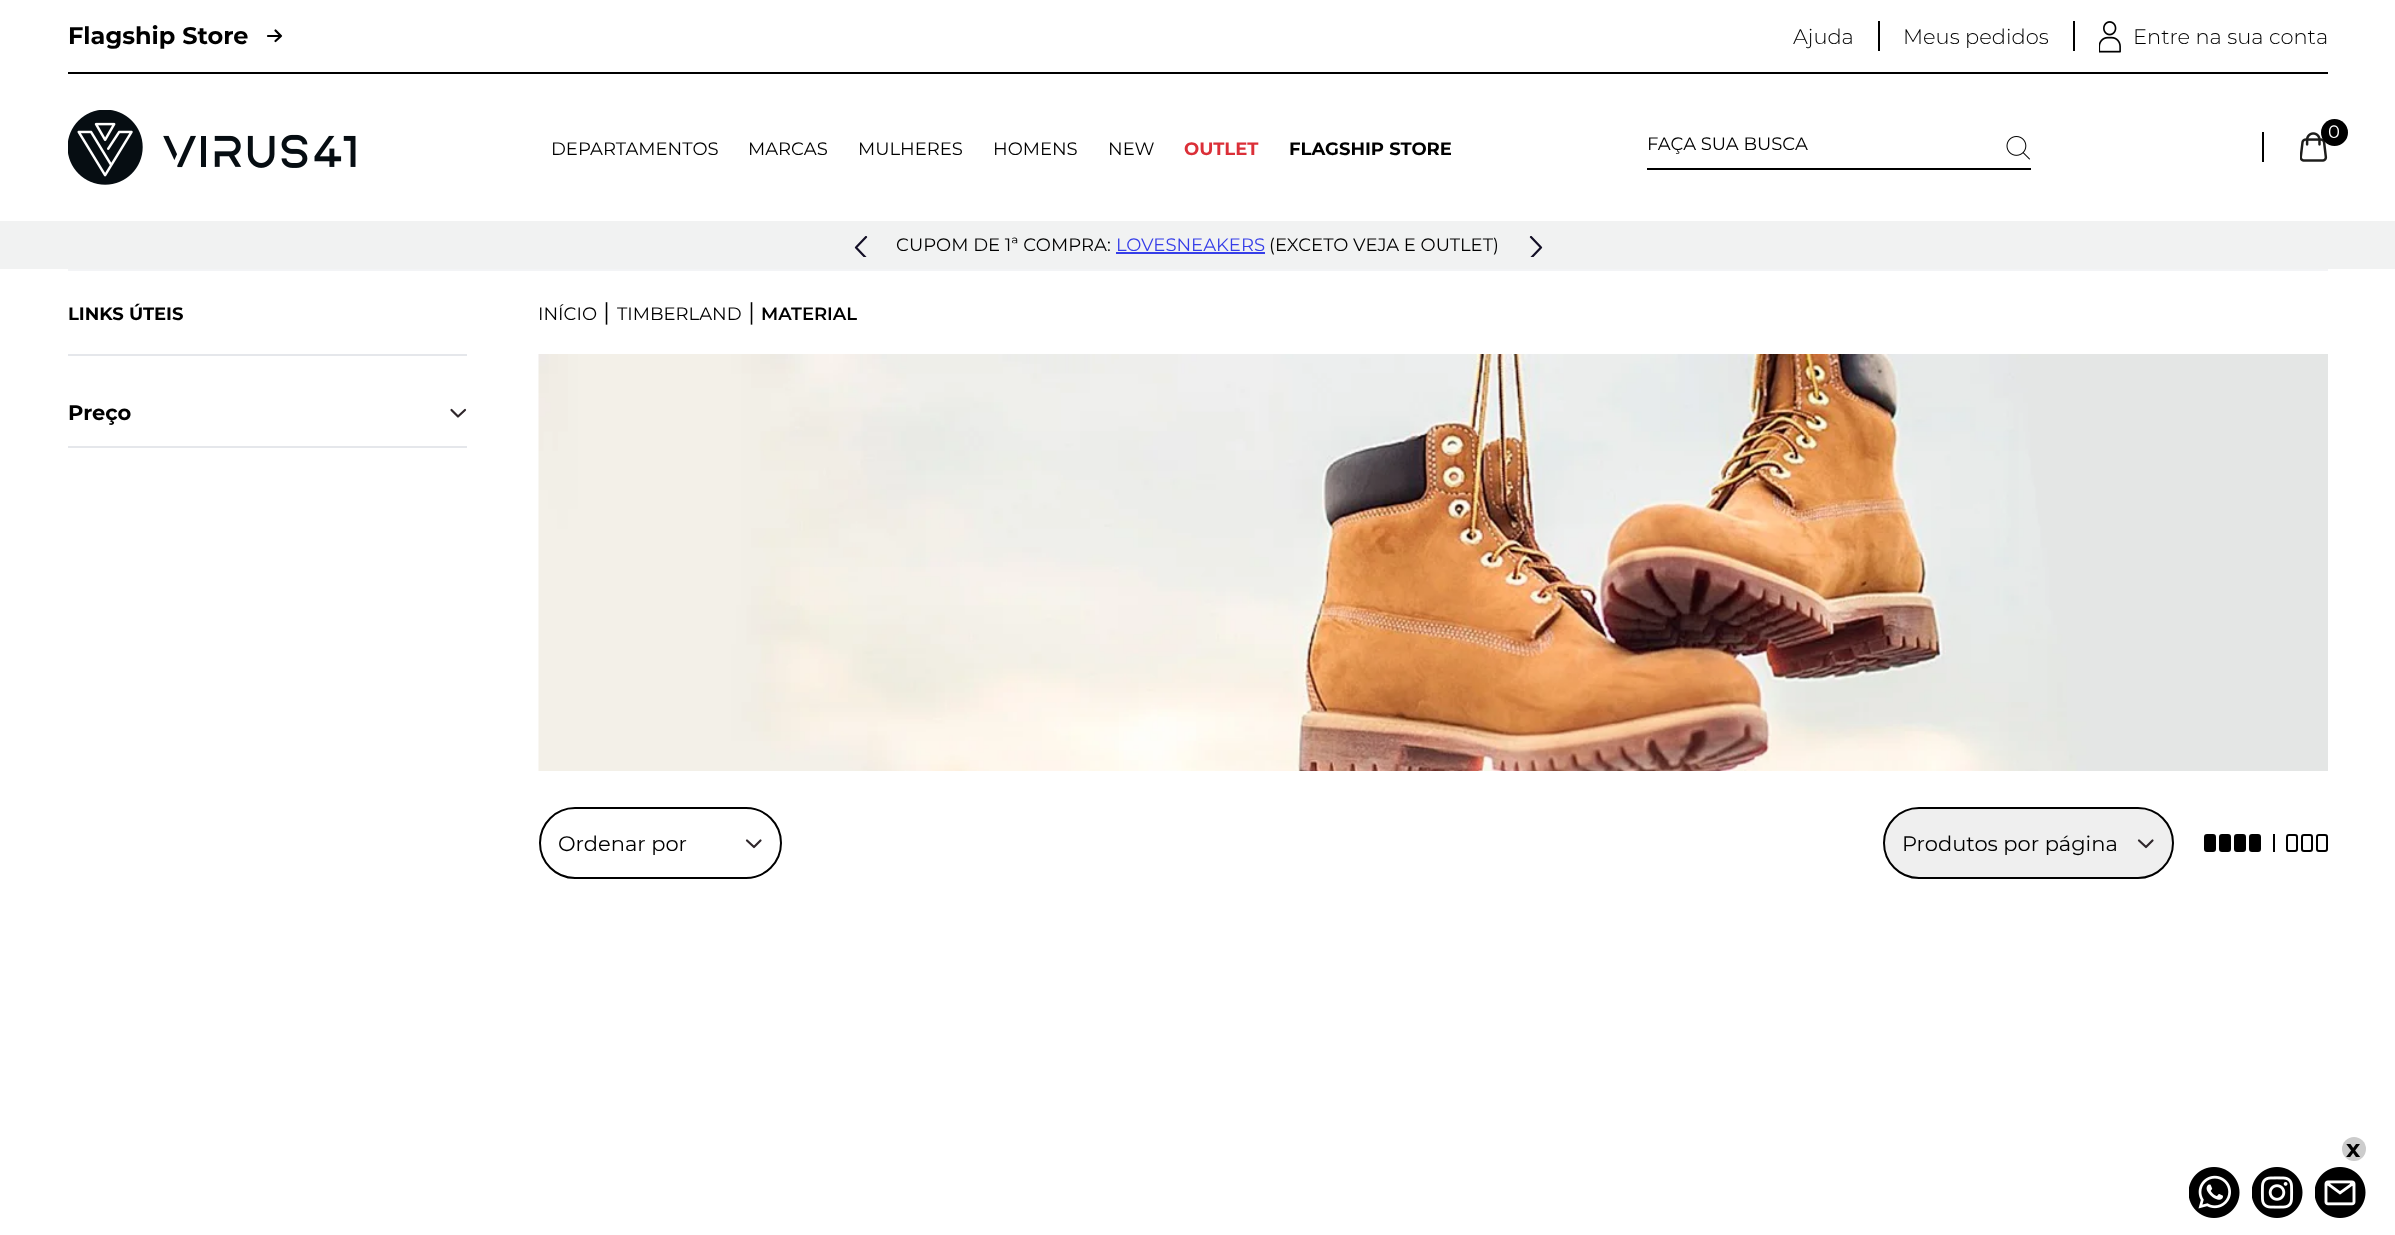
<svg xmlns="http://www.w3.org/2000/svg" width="2395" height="1235">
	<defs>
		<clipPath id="clip1"><rect x="854" y="236" width="15" height="21" /></clipPath>
		<clipPath id="clip2"><rect x="1529" y="236" width="15" height="21" /></clipPath>
	</defs>
	<rect width="100%" height="100%" fill="#FFFFFF" />
	<rect x="68" y="72" width="2260" height="2" fill="#000000" />
	<text x="68" y="44" font-family="Montserrat" font-size="24" font-weight="700" fill="#000000">Flagship Store</text>
	<path d="M281 36H268M275.5 30.5L281 36L275.5 41" fill="none" stroke="#000000" stroke-width="2.2" stroke-linecap="round" stroke-linejoin="round" />
	<rect x="1878" y="21" width="2" height="30" fill="#000000" />
	<text x="1793" y="44" font-family="Montserrat" font-size="21" font-weight="300" fill="#000000">Ajuda</text>
	<rect x="2073" y="21" width="2" height="30" fill="#000000" />
	<text x="1903" y="44" font-family="Montserrat" font-size="21" font-weight="300" fill="#000000">Meus pedidos</text>
	<image x="2099" y="21" width="22" height="32" href="assets/img1.png" />
	<text x="2133" y="44" font-family="Montserrat" font-size="21" font-weight="300" fill="#000000">Entre na sua conta</text>
	<image x="68" y="110" width="288" height="75" href="assets/img2.png" />
	<rect x="2262" y="132" width="2" height="30" fill="#000000" />
	<image x="2300" y="132" width="28" height="30" href="assets/img3.png" />
	<circle cx="2334.5" cy="132.5" r="13.5" fill="#000000" />
	<text x="2328" y="138" font-family="Montserrat" font-size="18" fill="#FFFFFF">0</text>
	<g font-family="Montserrat" font-size="18" fill="#000000">
		<text x="551" y="155">DEPARTAMENTOS</text>
		<text x="748" y="155">MARCAS</text>
		<text x="858" y="155">MULHERES</text>
		<text x="993" y="155">HOMENS</text>
		<text x="1108" y="155">NEW</text>
	</g>
	<text x="1184" y="155" font-family="Montserrat" font-size="18" font-weight="700" fill="#DB2F38">OUTLET</text>
	<text x="1289" y="155" font-family="Montserrat" font-size="18" font-weight="700" fill="#000000">FLAGSHIP STORE</text>
	<rect x="1647" y="168" width="384" height="2" fill="#000000" />
	<text x="1647" y="150" font-family="Montserrat" font-size="18" fill="#000000">FAÇA SUA BUSCA</text>
	<image x="2006" y="136" width="24" height="24" href="assets/img4.png" />
	<rect x="0" y="221" width="2395" height="48" fill="#F1F2F2" />
	<g clip-path="url(#clip1)">
		<path d="M866 258L856 247.5L866 237" fill="none" stroke="#130F26" stroke-width="2.2" stroke-linecap="round" stroke-linejoin="round" />
	</g>
	<text x="896" y="251" font-family="Montserrat" font-size="18" fill="#000000">CUPOM DE 1ª COMPRA:</text>
	<text x="1116" y="251" font-family="Montserrat" font-size="18" fill="#363EE8">LOVESNEAKERS</text>
	<rect x="1116" y="252" width="149" height="2" fill="#363EE8" />
	<text x="1269" y="251" font-family="Montserrat" font-size="18" fill="#000000">(EXCETO VEJA E OUTLET)</text>
	<g clip-path="url(#clip2)">
		<path d="M1531 237L1541 247.5L1531 258" fill="none" stroke="#130F26" stroke-width="2.2" stroke-linecap="round" stroke-linejoin="round" />
	</g>
	<rect x="68" y="269" width="2260" height="2" fill="#F3F4F6" />
	<text x="68" y="320" font-family="Montserrat" font-size="18" font-weight="700" fill="#000000">LINKS ÚTEIS</text>
	<rect x="68" y="354" width="399" height="2" fill="#E5E7EB" />
	<rect x="68" y="446" width="399" height="2" fill="#E5E7EB" />
	<text x="68" y="420" font-family="Montserrat" font-size="21" font-weight="700" fill="#000000">Preço</text>
	<path d="M465 410L458 416.5L451.5 410" fill="none" stroke="#2F272B" stroke-width="2.2" stroke-linecap="round" stroke-linejoin="round" />
	<text x="538" y="320" font-family="Montserrat" font-size="18" fill="#000000">INÍCIO</text>
	<text x="603" y="320" font-family="Montserrat" font-size="24" fill="#000000">|</text>
	<text x="617" y="320" font-family="Montserrat" font-size="18" fill="#000000">TIMBERLAND</text>
	<text x="748" y="320" font-family="Montserrat" font-size="24" fill="#000000">|</text>
	<text x="761" y="320" font-family="Montserrat" font-size="18" font-weight="600" fill="#000000">MATERIAL</text>
	<image x="538" y="354" width="1790" height="417" href="assets/img5.png" />
	<rect x="540" y="808" width="241" height="70" rx="35" fill="none" stroke="#000000" stroke-width="2" />
	<text x="558" y="851" font-family="Montserrat" font-size="21" fill="#000000">Ordenar por</text>
	<path d="M760.5 840.5L754 847L747 840.5" fill="none" stroke="#2F272B" stroke-width="2.2" stroke-linecap="round" stroke-linejoin="round" />
	<rect x="1884" y="808" width="289" height="70" rx="35" fill="#EFEFEF" stroke="#000000" stroke-width="2" />
	<text x="1902" y="851" font-family="Montserrat" font-size="21" fill="#000000">Produtos por página</text>
	<path d="M2152.5 840.5L2146 847L2139 840.5" fill="none" stroke="#2F272B" stroke-width="2.2" stroke-linecap="round" stroke-linejoin="round" />
	<rect x="2273" y="834" width="2" height="18" fill="#000000" />
	<rect x="2205" y="835" width="10" height="16" rx="2" fill="#000000" stroke="#000000" stroke-width="2" />
	<rect x="2220" y="835" width="10" height="16" rx="2" fill="#000000" stroke="#000000" stroke-width="2" />
	<rect x="2235" y="835" width="10" height="16" rx="2" fill="#000000" stroke="#000000" stroke-width="2" />
	<rect x="2250" y="835" width="10" height="16" rx="2" fill="#000000" stroke="#000000" stroke-width="2" />
	<rect x="2287" y="835" width="10" height="16" rx="2" fill="none" stroke="#000000" stroke-width="2" />
	<rect x="2302" y="835" width="10" height="16" rx="2" fill="none" stroke="#000000" stroke-width="2" />
	<rect x="2317" y="835" width="10" height="16" rx="2" fill="none" stroke="#000000" stroke-width="2" />
	<circle cx="2354" cy="1149" r="12" fill="#CCCCCC" />
	<text x="2346" y="1157" font-family="Montserrat" font-size="24" font-weight="700" fill="#000000">x</text>
	<image x="2189" y="1167" width="51" height="51" href="assets/img6.png" />
	<image x="2252" y="1167" width="51" height="51" href="assets/img7.png" />
	<image x="2315" y="1167" width="51" height="51" href="assets/img8.png" />
</svg>
